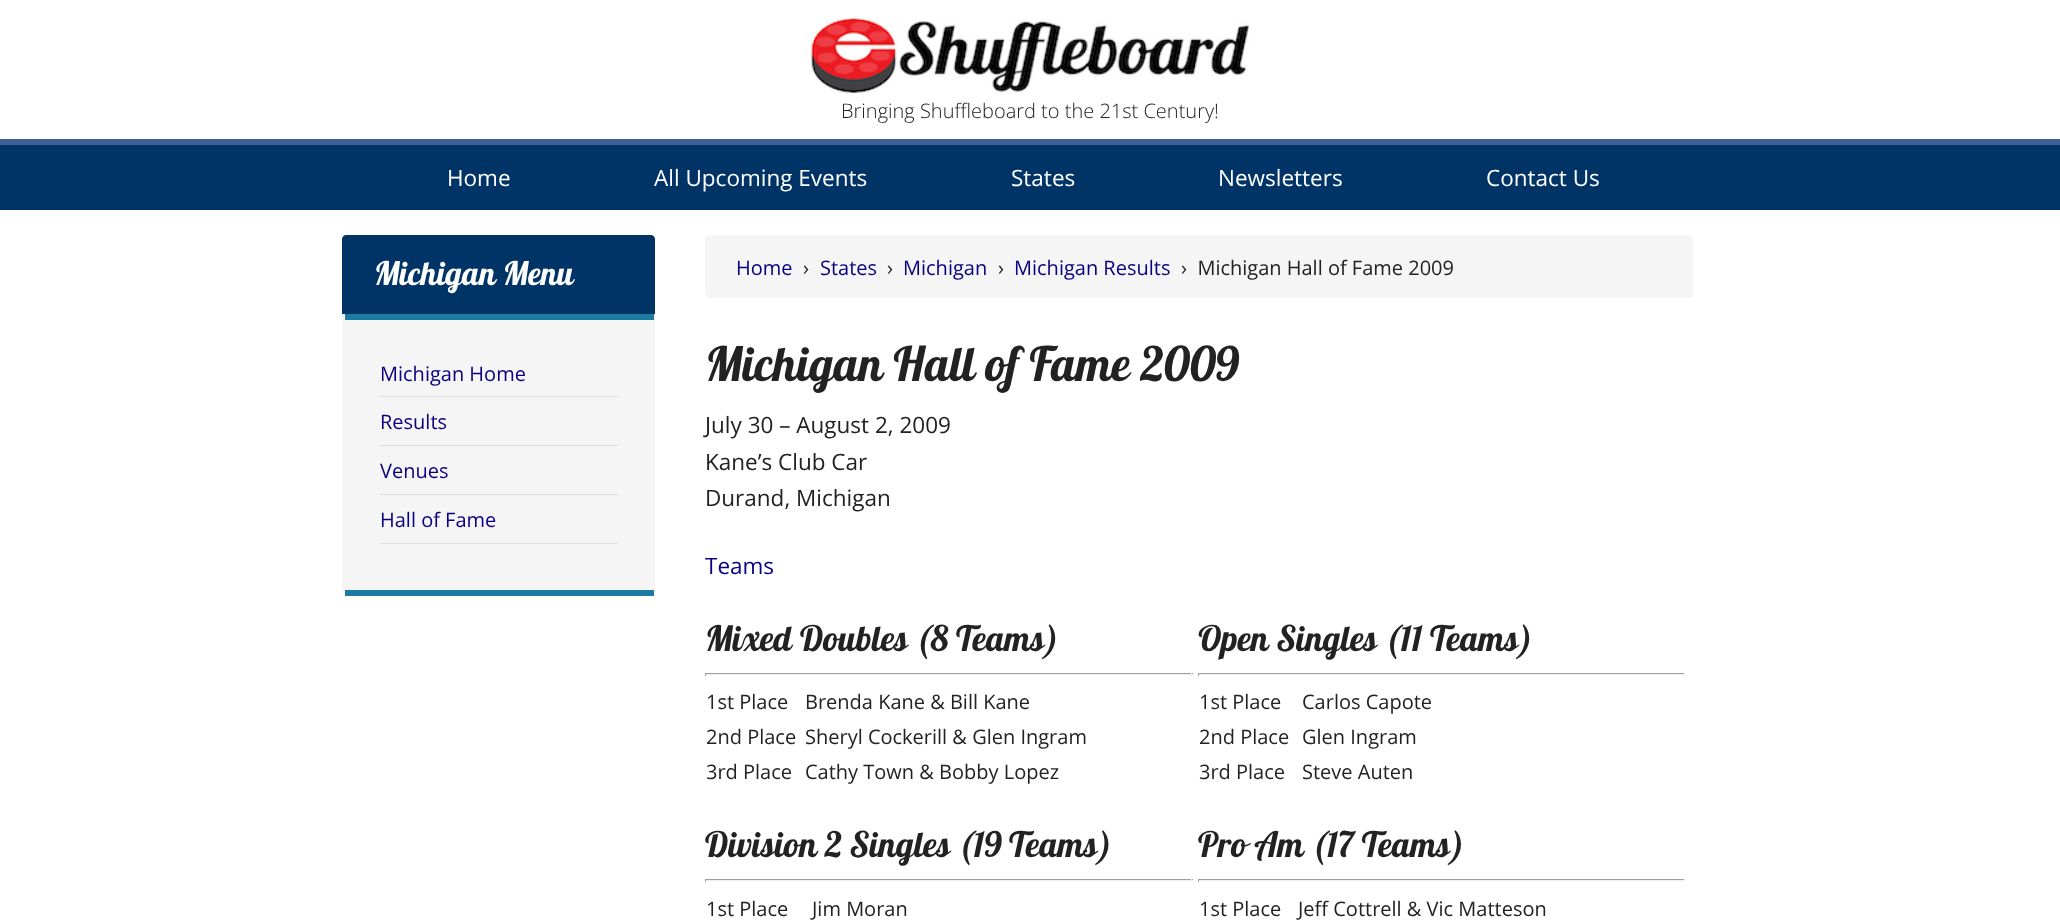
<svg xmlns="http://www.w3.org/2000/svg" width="2060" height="922">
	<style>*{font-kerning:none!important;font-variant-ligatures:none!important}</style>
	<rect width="100%" height="100%" fill="#FFFFFF" />
	<image x="811" y="18" width="438" height="75" href="assets/img1.png" />
	<text x="841" y="118" font-family="Open Sans" font-size="20" font-weight="300" fill="#222222">Bringing Shuffleboard to the 21st Century!</text>
	<rect x="0" y="145" width="2060" height="65" fill="#003366" />
	<rect x="0" y="139" width="2060" height="6" fill="#3D6098" />
	<g font-family="Open Sans" font-size="22.5" fill="#FFFFFF">
		<text x="447" y="186">Home</text>
		<text x="654" y="186">All Upcoming Events</text>
		<text x="1011" y="186">States</text>
		<text x="1218" y="186">Newsletters</text>
		<text x="1486" y="186">Contact Us</text>
	</g>
	<path d="M346 235H651C653 235 655 237 655 239V590H342V239C342 237 344 235 346 235Z" fill="#F5F5F5" />
	<rect x="345" y="590" width="309" height="6" fill="#1D7BA3" />
	<path d="M346 235H651C653 235 655 237 655 239V314H342V239C342 237 344 235 346 235Z" fill="#003366" />
	<rect x="345" y="314" width="309" height="6" fill="#1D7BA3" />
	<text x="374" y="285" font-family="Lobster" font-size="32.5" fill="#FFFFFF">Michigan Menu</text>
	<rect x="380" y="396" width="238" height="1" fill="#DDDDDD" />
	<text x="380" y="381" font-family="Open Sans" font-size="20" fill="#0B0080">Michigan Home</text>
	<rect x="380" y="445" width="238" height="1" fill="#DDDDDD" />
	<text x="380" y="429" font-family="Open Sans" font-size="20" fill="#0B0080">Results</text>
	<rect x="380" y="494" width="238" height="1" fill="#DDDDDD" />
	<text x="380" y="478" font-family="Open Sans" font-size="20" fill="#0B0080">Venues</text>
	<rect x="380" y="543" width="238" height="1" fill="#DDDDDD" />
	<text x="380" y="527" font-family="Open Sans" font-size="20" fill="#0B0080">Hall of Fame</text>
	<rect x="705" y="235" width="988" height="63" rx="4" fill="#F5F5F5" />
	<text x="736" y="275" font-family="Open Sans" font-size="20" fill="#0B0080">Home</text>
	<text x="803" y="275" font-family="Open Sans" font-size="20" fill="#222222">›</text>
	<text x="820" y="275" font-family="Open Sans" font-size="20" fill="#0B0080">States</text>
	<text x="887" y="275" font-family="Open Sans" font-size="20" fill="#222222">›</text>
	<text x="903" y="275" font-family="Open Sans" font-size="20" fill="#0B0080">Michigan</text>
	<text x="998" y="275" font-family="Open Sans" font-size="20" fill="#222222">›</text>
	<text x="1014" y="275" font-family="Open Sans" font-size="20" fill="#0B0080">Michigan Results</text>
	<text x="1181" y="275" font-family="Open Sans" font-size="20" fill="#222222" xml:space="preserve">›  Michigan Hall of Fame 2009</text>
	<text x="705" y="381" font-family="Lobster" font-size="47.5" fill="#222222">Michigan Hall of Fame 2009</text>
	<g font-family="Open Sans" font-size="22.5" fill="#222222">
		<text x="705" y="433">July 30 – August 2, 2009</text>
		<text x="705" y="470">Kane’s Club Car</text>
		<text x="705" y="506">Durand, Michigan</text>
	</g>
	<text x="705" y="574" font-family="Open Sans" font-size="22.5" fill="#0B0080">Teams</text>
	<text x="705" y="651" font-family="Lobster" font-size="35" fill="#222222">Mixed</text>
	<text x="800" y="651" font-family="Lobster" font-size="35" fill="#222222">Doubles (8 Teams)</text>
	<rect x="705" y="673" width="488" height="1" fill="#9F9F9F" />
	<rect x="1191" y="673" width="1" height="3" fill="#EEEEEE" />
	<rect x="705" y="674" width="488" height="1" fill="#EEEEEE" />
	<rect x="705" y="673" width="1" height="3" fill="#9F9F9F" />
	<g font-family="Open Sans" font-size="20" fill="#222222">
		<text x="706" y="709">1st Place</text>
		<text x="805" y="709">Brenda Kane &amp; Bill Kane</text>
		<text x="706" y="744">2nd Place</text>
		<text x="805" y="744">Sheryl Cockerill &amp; Glen Ingram</text>
		<text x="706" y="779">3rd Place</text>
		<text x="805" y="779">Cathy Town &amp; Bobby Lopez</text>
	</g>
	<text x="1198" y="651" font-family="Lobster" font-size="35" fill="#222222">Open Singles (11 Teams)</text>
	<rect x="1198" y="673" width="487" height="1" fill="#9F9F9F" />
	<rect x="1684" y="673" width="1" height="3" fill="#EEEEEE" />
	<rect x="1198" y="674" width="487" height="1" fill="#EEEEEE" />
	<rect x="1198" y="673" width="1" height="3" fill="#9F9F9F" />
	<g font-family="Open Sans" font-size="20" fill="#222222">
		<text x="1199" y="709">1st Place</text>
		<text x="1302" y="709">Carlos Capote</text>
		<text x="1199" y="744">2nd Place</text>
		<text x="1302" y="744">Glen Ingram</text>
		<text x="1199" y="779">3rd Place</text>
		<text x="1302" y="779">Steve Auten</text>
	</g>
	<text x="705" y="857" font-family="Lobster" font-size="35" fill="#222222">Division 2 Singles (19 Teams)</text>
	<rect x="705" y="879" width="488" height="1" fill="#9F9F9F" />
	<rect x="1191" y="879" width="1" height="3" fill="#EEEEEE" />
	<rect x="705" y="880" width="488" height="1" fill="#EEEEEE" />
	<rect x="705" y="879" width="1" height="3" fill="#9F9F9F" />
	<g font-family="Open Sans" font-size="20" fill="#222222">
		<text x="706" y="916">1st Place</text>
		<text x="812" y="916">Jim Moran</text>
	</g>
	<text x="1198" y="857" font-family="Lobster" font-size="35" fill="#222222">Pro Am (17 Teams)</text>
	<rect x="1198" y="879" width="487" height="1" fill="#9F9F9F" />
	<rect x="1684" y="879" width="1" height="3" fill="#EEEEEE" />
	<rect x="1198" y="880" width="487" height="1" fill="#EEEEEE" />
	<rect x="1198" y="879" width="1" height="3" fill="#9F9F9F" />
	<g font-family="Open Sans" font-size="20" fill="#222222">
		<text x="1199" y="916">1st Place</text>
		<text x="1298" y="916">Jeff Cottrell &amp; Vic Matteson</text>
	</g>
</svg>
